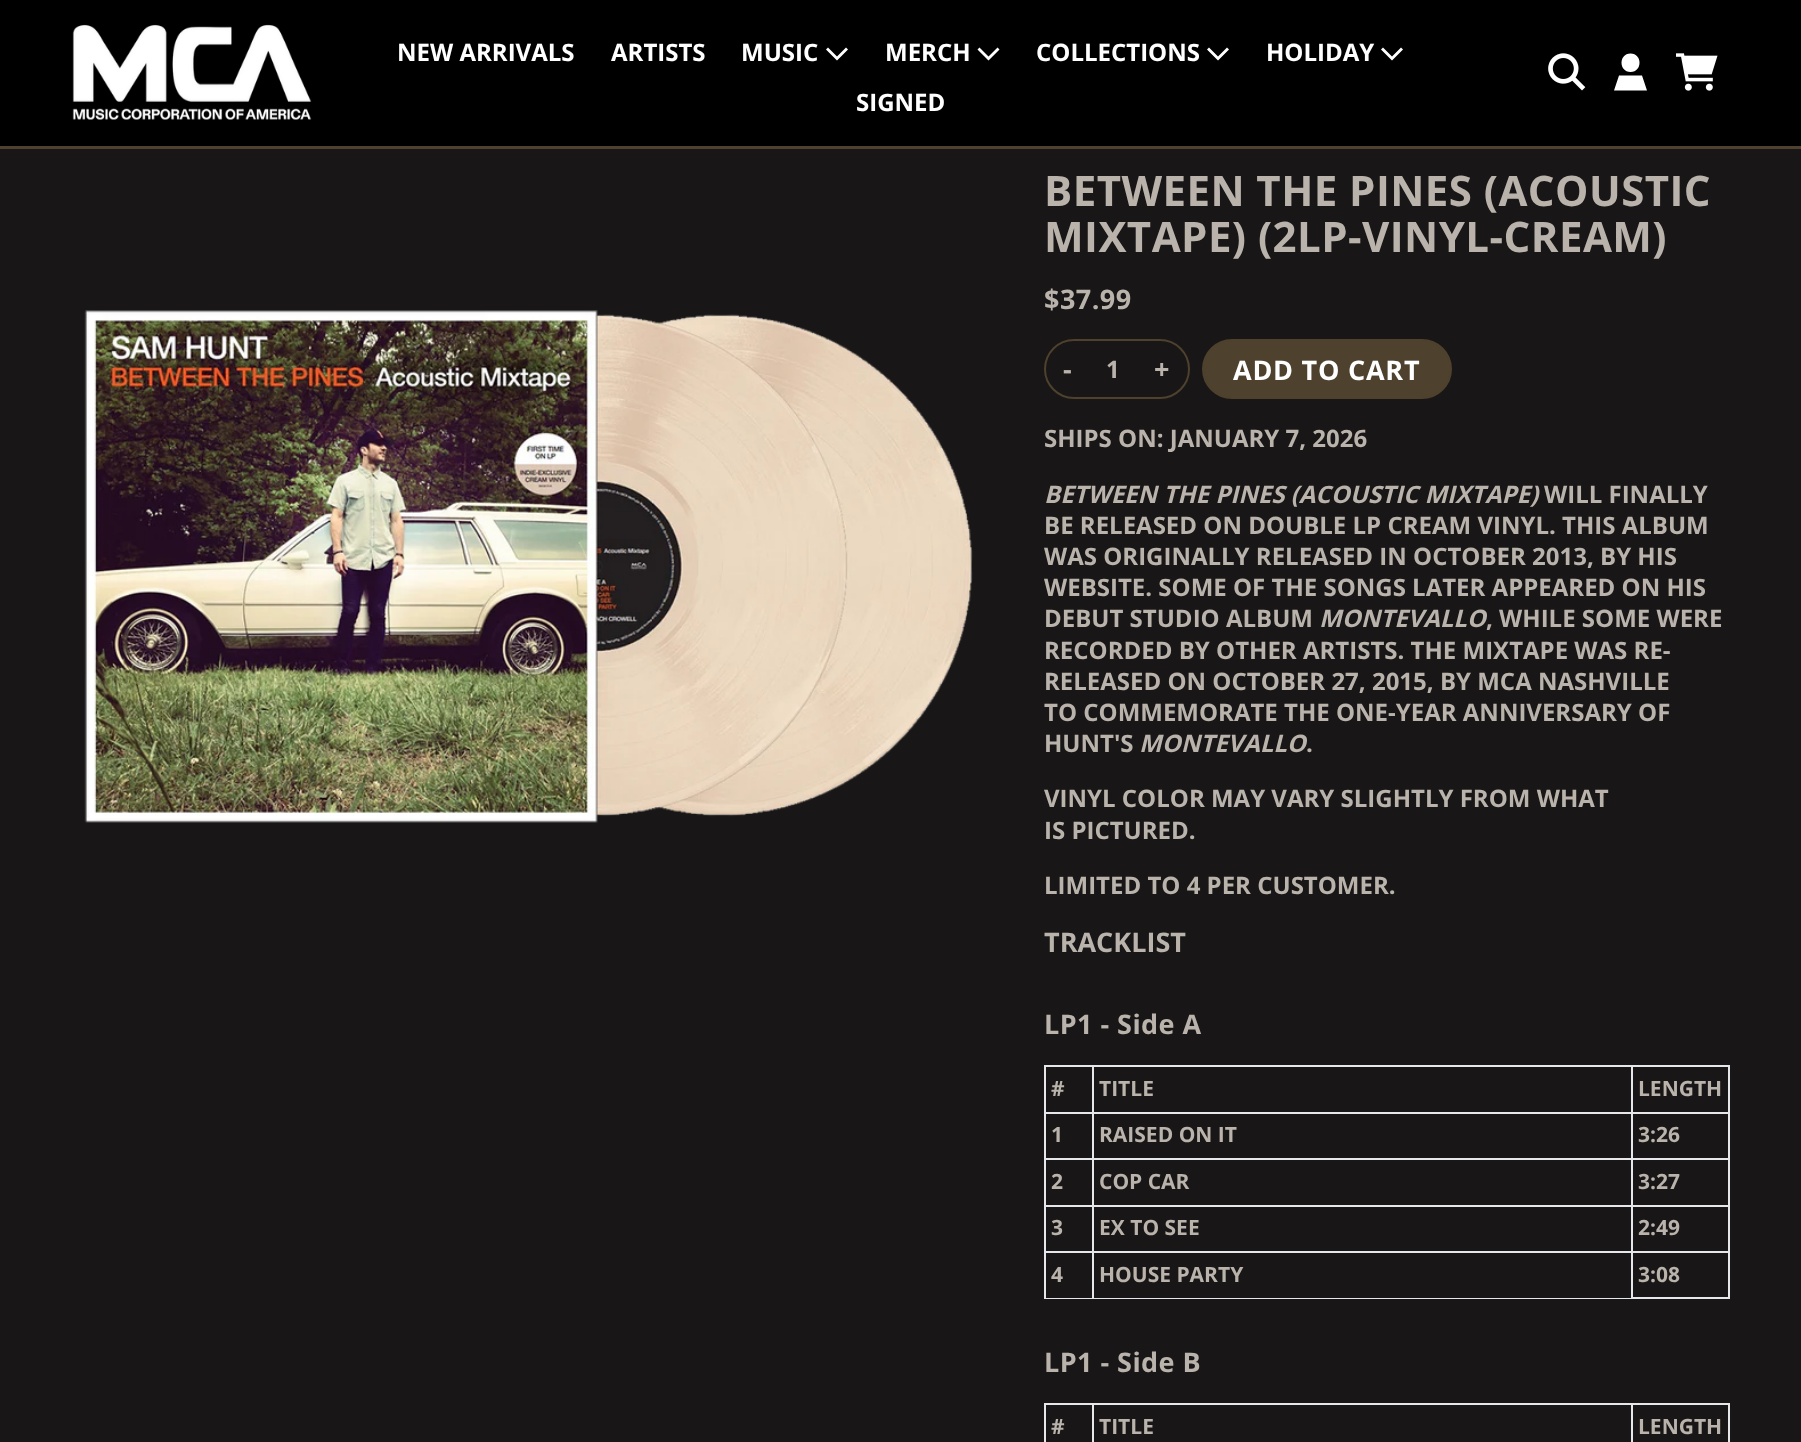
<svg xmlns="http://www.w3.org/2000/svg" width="1801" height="1442">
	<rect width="100%" height="100%" fill="#181616" />
	<rect x="0" y="0" width="1801" height="146" fill="#000000" />
	<rect x="0" y="146" width="1801" height="3" fill="#4E412D" />
	<image x="72" y="24" width="240" height="96" href="assets/img1.png" />
	<g font-family="Open Sans" font-size="24" font-weight="700" fill="#FFFFFF">
		<text x="397" y="61">NEW ARRIVALS</text>
		<text x="611" y="61">ARTISTS</text>
		<text x="741" y="61">MUSIC</text>
	</g>
	<path d="M837 60.5L848 49.5L846 47.5L837 56.5L828 47.5L826 49.5Z" fill="#FFFFFF" />
	<text x="885" y="61" font-family="Open Sans" font-size="24" font-weight="700" fill="#FFFFFF">MERCH</text>
	<path d="M988.5 60.5L999.5 49.5L997.5 47.5L988.5 56.5L979.5 47.5L977.5 49.5Z" fill="#FFFFFF" />
	<text x="1036" y="61" font-family="Open Sans" font-size="24" font-weight="700" fill="#FFFFFF">COLLECTIONS</text>
	<path d="M1218 60.5L1229 49.5L1227 47.5L1218 56.5L1209 47.5L1207 49.5Z" fill="#FFFFFF" />
	<text x="1266" y="61" font-family="Open Sans" font-size="24" font-weight="700" fill="#FFFFFF">HOLIDAY</text>
	<path d="M1392 60.5L1403 49.5L1401 47.5L1392 56.5L1383 47.5L1381 49.5Z" fill="#FFFFFF" />
	<text x="856" y="111" font-family="Open Sans" font-size="24" font-weight="700" fill="#FFFFFF">SIGNED</text>
	<image x="1548" y="53" width="38" height="38" href="assets/img2.png" />
	<path d="M1630.5 72C1642.5 72 1642.5 53.5 1630.5 53.5C1618.5 53.5 1618.5 72 1630.5 72ZM1647 90.5L1642 75.5H1619L1614 90.5Z" fill="#FFFFFF" />
	<image x="1676" y="53" width="42" height="38" href="assets/img3.png" />
	<image x="84" y="310" width="889" height="513" href="assets/img4.png" />
	<g font-family="Open Sans" font-size="42" font-weight="700" letter-spacing="0.45" fill="#B9B3AC">
		<text x="1044" y="206">BETWEEN THE PINES (ACOUSTIC</text>
		<text x="1044" y="252">MIXTAPE) (2LP-VINYL-CREAM)</text>
	</g>
	<text x="1044" y="309" font-family="Open Sans" font-size="27" font-weight="700" letter-spacing="0.45" fill="#B9B3AC">$37.99</text>
	<rect x="1045" y="340" width="144" height="58" rx="29" fill="none" stroke="#4E412D" stroke-width="2" />
	<text x="1063" y="379" font-family="Open Sans" font-size="27" font-weight="700" fill="#B9B3AC">-</text>
	<text x="1106" y="378" font-family="Open Sans" font-size="24" font-weight="700" fill="#B9B3AC">1</text>
	<text x="1154" y="379" font-family="Open Sans" font-size="27" font-weight="700" fill="#B9B3AC">+</text>
	<rect x="1203" y="340" width="248" height="58" rx="29" fill="#4E412D" stroke="#4E412D" stroke-width="2" />
	<text x="1233" y="380" font-family="Open Sans" font-size="27" font-weight="700" letter-spacing="0.75" fill="#FFFFFF">ADD TO CART</text>
	<text x="1044" y="447" font-family="Open Sans" font-size="24" font-weight="700" fill="#B9B3AC">SHIPS ON: JANUARY 7, 2026</text>
	<text x="1044" y="503" font-family="Open Sans" font-size="24" font-weight="700" font-style="italic" fill="#B9B3AC">BETWEEN THE PINES (ACOUSTIC MIXTAPE)</text>
	<g font-family="Open Sans" font-size="24" font-weight="700" fill="#B9B3AC">
		<text x="1544" y="503">WILL FINALLY</text>
		<text x="1044" y="534">BE RELEASED ON DOUBLE LP CREAM VINYL. THIS ALBUM</text>
		<text x="1044" y="565">WAS ORIGINALLY RELEASED IN OCTOBER 2013, BY HIS</text>
		<text x="1044" y="596">WEBSITE. SOME OF THE SONGS LATER APPEARED ON HIS</text>
		<text x="1044" y="627">DEBUT STUDIO ALBUM</text>
	</g>
	<text x="1319" y="627" font-family="Open Sans" font-size="24" font-weight="700" font-style="italic" fill="#B9B3AC">MONTEVALLO</text>
	<g font-family="Open Sans" font-size="24" font-weight="700" fill="#B9B3AC">
		<text x="1486" y="627">, WHILE SOME WERE</text>
		<text x="1044" y="659">RECORDED BY OTHER ARTISTS. THE MIXTAPE WAS RE-</text>
		<text x="1044" y="690">RELEASED ON OCTOBER 27, 2015, BY MCA NASHVILLE</text>
		<text x="1044" y="721">TO COMMEMORATE THE ONE-YEAR ANNIVERSARY OF</text>
		<text x="1044" y="752">HUNT'S</text>
	</g>
	<text x="1139" y="752" font-family="Open Sans" font-size="24" font-weight="700" font-style="italic" fill="#B9B3AC">MONTEVALLO</text>
	<g font-family="Open Sans" font-size="24" font-weight="700" fill="#B9B3AC">
		<text x="1306" y="752">.</text>
		<text x="1044" y="807">VINYL COLOR MAY VARY SLIGHTLY FROM WHAT</text>
		<text x="1044" y="839">IS PICTURED.</text>
		<text x="1044" y="894">LIMITED TO 4 PER CUSTOMER.</text>
	</g>
	<text x="1044" y="952" font-family="Open Sans" font-size="27" font-weight="700" fill="#B9B3AC">TRACKLIST</text>
	<text x="1044" y="1034" font-family="Open Sans" font-size="27" font-weight="700" letter-spacing="0.45" fill="#B9B3AC">LP1 - Side A</text>
	<rect x="1044" y="1065" width="686" height="2" fill="#E5E7EB" />
	<rect x="1044" y="1065" width="2" height="47" fill="#E5E7EB" />
	<text x="1051" y="1096" font-family="Open Sans" font-size="21" font-weight="700" fill="#B9B3AC">#</text>
	<rect x="1092" y="1065" width="2" height="47" fill="#E5E7EB" />
	<text x="1099" y="1096" font-family="Open Sans" font-size="21" font-weight="700" fill="#B9B3AC">TITLE</text>
	<rect x="1728" y="1065" width="2" height="47" fill="#E5E7EB" />
	<rect x="1631" y="1065" width="2" height="47" fill="#E5E7EB" />
	<text x="1638" y="1096" font-family="Open Sans" font-size="21" font-weight="700" fill="#B9B3AC">LENGTH</text>
	<rect x="1044" y="1112" width="686" height="2" fill="#E5E7EB" />
	<rect x="1044" y="1112" width="2" height="46" fill="#E5E7EB" />
	<text x="1051" y="1142" font-family="Open Sans" font-size="21" font-weight="700" fill="#B9B3AC">1</text>
	<rect x="1092" y="1112" width="2" height="46" fill="#E5E7EB" />
	<text x="1099" y="1142" font-family="Open Sans" font-size="21" font-weight="700" fill="#B9B3AC">RAISED ON IT</text>
	<rect x="1728" y="1112" width="2" height="46" fill="#E5E7EB" />
	<rect x="1631" y="1112" width="2" height="46" fill="#E5E7EB" />
	<text x="1638" y="1142" font-family="Open Sans" font-size="21" font-weight="700" fill="#B9B3AC">3:26</text>
	<rect x="1044" y="1158" width="686" height="2" fill="#E5E7EB" />
	<rect x="1044" y="1158" width="2" height="47" fill="#E5E7EB" />
	<text x="1051" y="1189" font-family="Open Sans" font-size="21" font-weight="700" fill="#B9B3AC">2</text>
	<rect x="1092" y="1158" width="2" height="47" fill="#E5E7EB" />
	<text x="1099" y="1189" font-family="Open Sans" font-size="21" font-weight="700" fill="#B9B3AC">COP CAR</text>
	<rect x="1728" y="1158" width="2" height="47" fill="#E5E7EB" />
	<rect x="1631" y="1158" width="2" height="47" fill="#E5E7EB" />
	<text x="1638" y="1189" font-family="Open Sans" font-size="21" font-weight="700" fill="#B9B3AC">3:27</text>
	<rect x="1044" y="1205" width="686" height="2" fill="#E5E7EB" />
	<rect x="1044" y="1205" width="2" height="46" fill="#E5E7EB" />
	<text x="1051" y="1235" font-family="Open Sans" font-size="21" font-weight="700" fill="#B9B3AC">3</text>
	<rect x="1092" y="1205" width="2" height="46" fill="#E5E7EB" />
	<text x="1099" y="1235" font-family="Open Sans" font-size="21" font-weight="700" fill="#B9B3AC">EX TO SEE</text>
	<rect x="1728" y="1205" width="2" height="46" fill="#E5E7EB" />
	<rect x="1631" y="1205" width="2" height="46" fill="#E5E7EB" />
	<text x="1638" y="1235" font-family="Open Sans" font-size="21" font-weight="700" fill="#B9B3AC">2:49</text>
	<rect x="1044" y="1251" width="587" height="2" fill="#E5E7EB" />
	<rect x="1044" y="1298" width="587" height="1" fill="#E5E7EB" />
	<rect x="1044" y="1251" width="2" height="48" fill="#E5E7EB" />
	<text x="1051" y="1282" font-family="Open Sans" font-size="21" font-weight="700" fill="#B9B3AC">4</text>
	<rect x="1092" y="1251" width="2" height="48" fill="#E5E7EB" />
	<text x="1099" y="1282" font-family="Open Sans" font-size="21" font-weight="700" fill="#B9B3AC">HOUSE PARTY</text>
	<rect x="1632" y="1252" width="97" height="46" fill="none" stroke="#E5E7EB" stroke-width="2" />
	<text x="1638" y="1282" font-family="Open Sans" font-size="21" font-weight="700" fill="#B9B3AC">3:08</text>
	<text x="1044" y="1372" font-family="Open Sans" font-size="27" font-weight="700" letter-spacing="0.45" fill="#B9B3AC">LP1 - Side B</text>
	<rect x="1044" y="1403" width="686" height="2" fill="#E5E7EB" />
	<rect x="1044" y="1403" width="2" height="39" fill="#E5E7EB" />
	<text x="1051" y="1434" font-family="Open Sans" font-size="21" font-weight="700" fill="#B9B3AC">#</text>
	<rect x="1092" y="1403" width="2" height="39" fill="#E5E7EB" />
	<text x="1099" y="1434" font-family="Open Sans" font-size="21" font-weight="700" fill="#B9B3AC">TITLE</text>
	<rect x="1728" y="1403" width="2" height="39" fill="#E5E7EB" />
	<rect x="1631" y="1403" width="2" height="39" fill="#E5E7EB" />
	<text x="1638" y="1434" font-family="Open Sans" font-size="21" font-weight="700" fill="#B9B3AC">LENGTH</text>
</svg>
